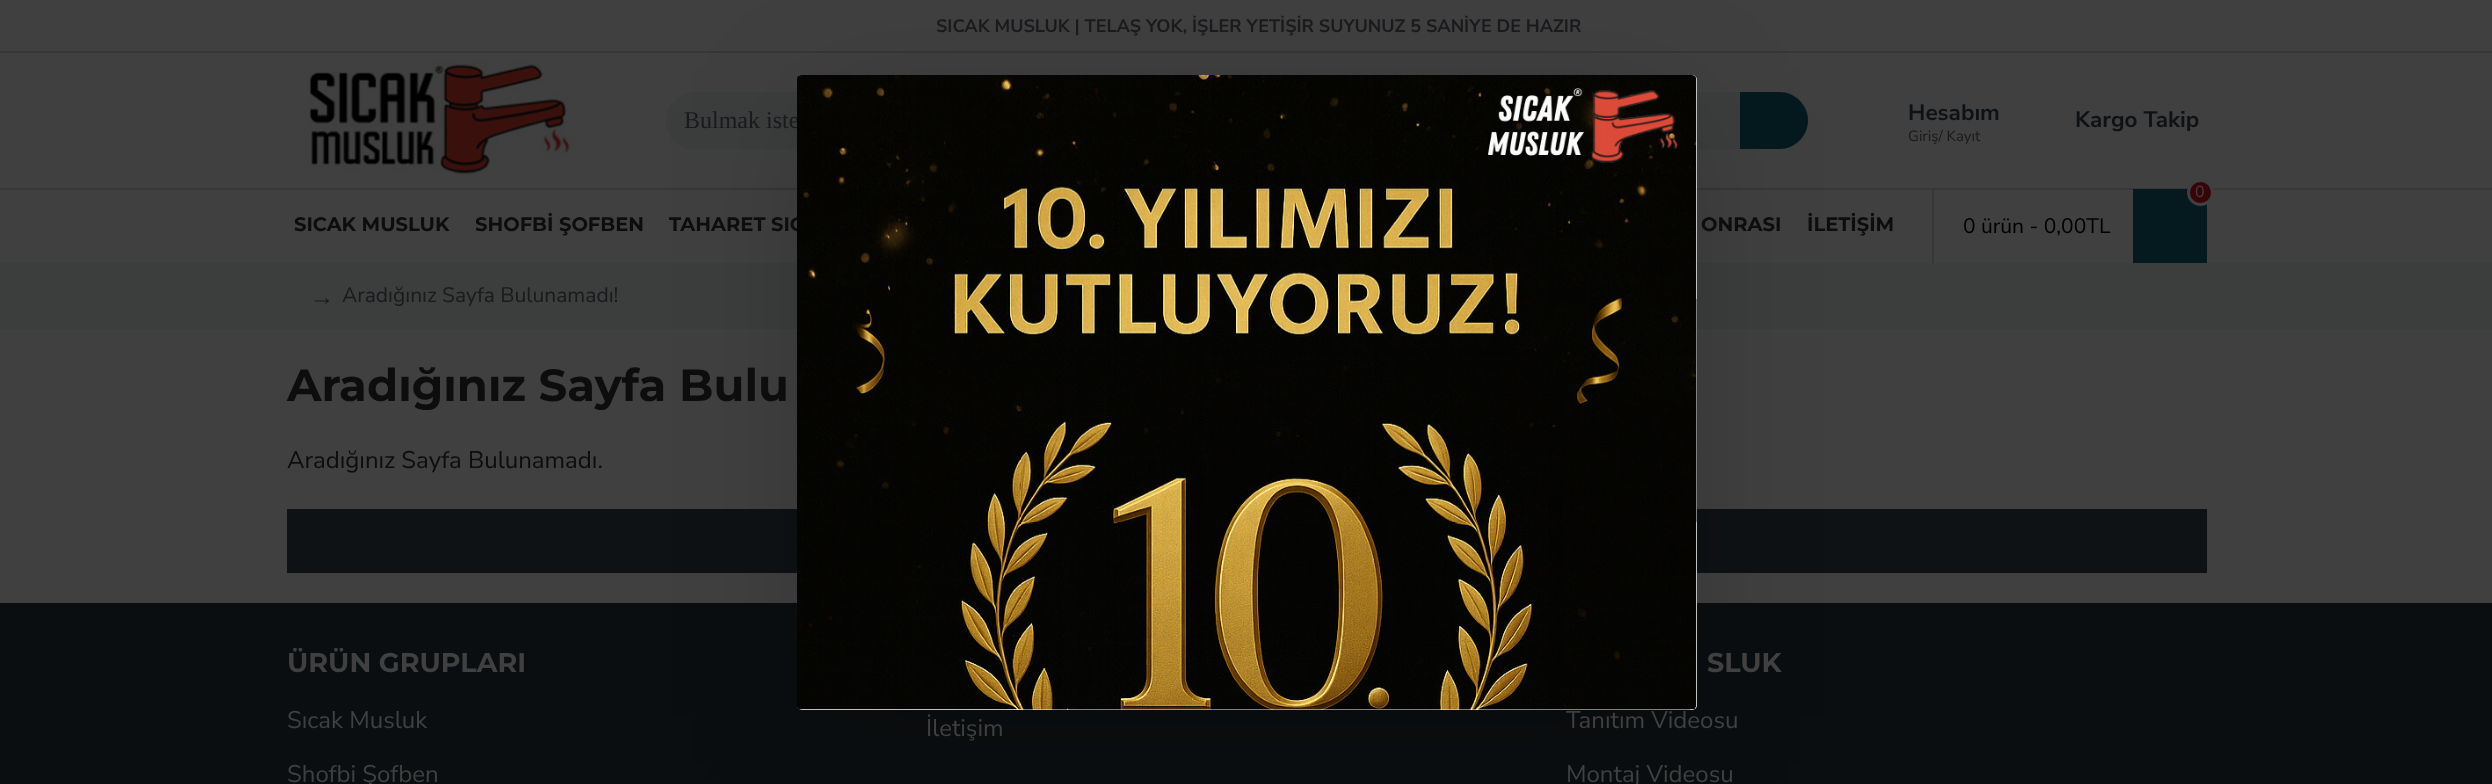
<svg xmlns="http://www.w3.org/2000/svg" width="2492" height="784">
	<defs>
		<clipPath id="clip1"><rect x="476" y="210" width="168" height="30" /></clipPath>
	</defs>
	<rect width="100%" height="100%" fill="#404040" />
	<path d="M694.5 92H1740V149H694.5C679 149 666 136 666 120.5C666 105 679 92 694.5 92Z" fill="#3C3D3D" />
	<path d="M1740 92H1779.5C1795 92 1808 105 1808 120.5C1808 136 1795 149 1779.5 149H1740Z" fill="#051A1E" />
	<rect x="0" y="188" width="2492" height="2" fill="#373737" />
	<rect x="0" y="51" width="2492" height="2" fill="#373737" />
	<rect x="0" y="263" width="2492" height="66" fill="#3C3D3D" />
	<rect x="287" y="509" width="1920" height="64" fill="#0F1215" />
	<rect x="0" y="603" width="2492" height="181" fill="#0B0E10" />
	<rect x="812" y="113" width="870" height="604" fill="#000000" fill-opacity="0.2" filter="blur(67.5px)" />
	<text x="684" y="128" font-family="Liberation Serif" font-size="24" fill="#1A1A1D">Bulmak iste</text>
	<text x="669" y="231" font-family="Montserrat" font-size="19.5" font-weight="700" fill="#0D0D0D">TAHARET SIC</text>
	<rect x="797" y="75" width="900" height="635" rx="5" fill="#FFFFFF" />
	<image x="797" y="75" width="900" height="635" href="assets/img1.png" />
	<text x="936" y="32" font-family="Nunito Sans" font-size="18" font-weight="700" fill="#1A1A1D">SICAK MUSLUK | TELAŞ YOK, İŞLER YETİŞİR SUYUNUZ 5 SANİYE DE HAZIR</text>
	<image x="309" y="59" width="268" height="118" href="assets/img2.png" />
	<text x="1908" y="120" font-family="Nunito Sans" font-size="22.5" font-weight="700" fill="#0F1215">Hesabım</text>
	<text x="1908" y="141" font-family="Nunito Sans" font-size="15" fill="#1A1A1D">Giriş/ Kayıt</text>
	<text x="2075" y="127" font-family="Nunito Sans" font-size="22.5" font-weight="700" fill="#0F1215">Kargo Takip</text>
	<rect x="1932" y="188" width="2" height="75" fill="#373737" />
	<rect x="2133" y="189" width="74" height="74" fill="#051A1E" />
	<circle cx="2200.5" cy="192.5" r="12" fill="#370407" stroke="#404040" stroke-width="3" />
	<text x="2195" y="197" font-family="Nunito Sans" font-size="16" fill="#404040">0</text>
	<text x="1963" y="233" font-family="Nunito Sans" font-size="21" fill="#000000">0 ürün - 0,00TL</text>
	<text x="294" y="231" font-family="Montserrat" font-size="19.5" font-weight="700" fill="#0D0D0D">SICAK MUSLUK</text>
	<g clip-path="url(#clip1)">
		<text x="475" y="231" font-family="Montserrat" font-size="19.5" font-weight="700" fill="#0D0D0D">SHOFBİ ŞOFBEN</text>
	</g>
	<g font-family="Montserrat" font-size="19.5" font-weight="700" fill="#0D0D0D">
		<text x="1701" y="231">ONRASI</text>
		<text x="1807" y="231">İLETİŞİM</text>
	</g>
	<text x="310" y="305" font-family="Liberation Serif" font-size="24" fill="#1A1A1D">→</text>
	<text x="342" y="302" font-family="Nunito Sans" font-size="21" fill="#1A1A1D">Aradığınız Sayfa Bulunamadı!</text>
	<text x="287" y="401" font-family="Montserrat" font-size="45" font-weight="700" fill="#0D0D0D">Aradığınız Sayfa Bulu</text>
	<text x="287" y="468" font-family="Nunito Sans" font-size="24" fill="#0D0D0D">Aradığınız Sayfa Bulunamadı.</text>
	<text x="287" y="672" font-family="Montserrat" font-size="27" font-weight="700" fill="#404040">ÜRÜN GRUPLARI</text>
	<g font-family="Nunito Sans" font-size="24" fill="#404040">
		<text x="287" y="728">Sıcak Musluk</text>
		<text x="287" y="782">Shofbi Şofben</text>
		<text x="926" y="736">İletişim</text>
	</g>
	<text x="1707" y="672" font-family="Montserrat" font-size="27" font-weight="700" fill="#404040">SLUK</text>
	<g font-family="Nunito Sans" font-size="24" fill="#404040">
		<text x="1566" y="728">Tanıtım Videosu</text>
		<text x="1566" y="782">Montaj Videosu</text>
	</g>
</svg>
